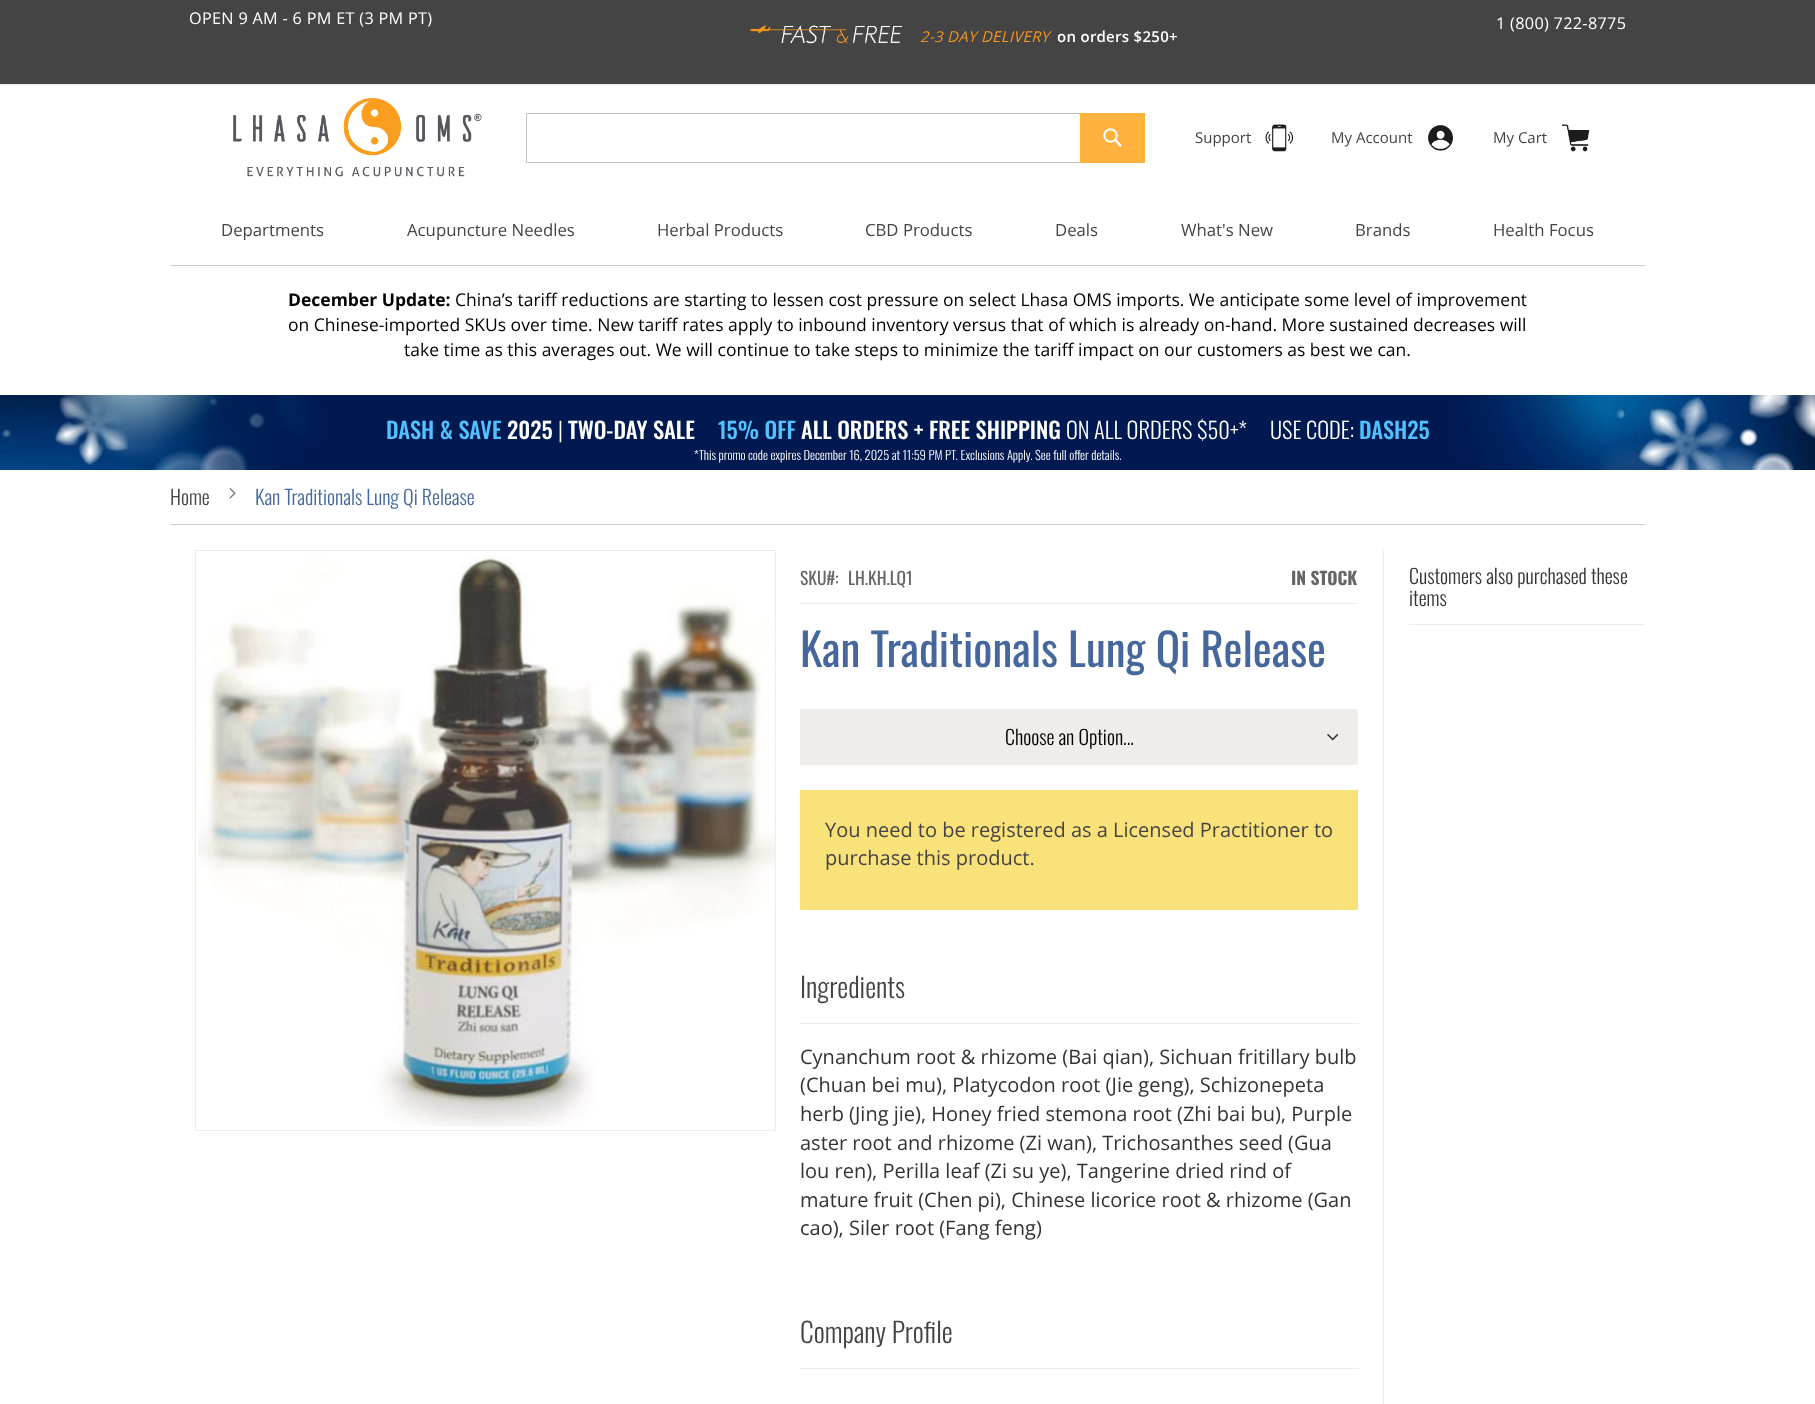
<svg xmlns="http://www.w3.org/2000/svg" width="1815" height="1404">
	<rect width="100%" height="100%" fill="#FFFFFF" />
	<rect x="0" y="0" width="1815" height="84" fill="#444444" />
	<rect x="0" y="84" width="1815" height="1" fill="#E8E8E8" />
	<g font-family="Open Sans" font-size="16.25" letter-spacing="0.3" fill="#FFFFFF">
		<text x="189" y="24">OPEN 9 AM - 6 PM ET (3 PM PT)</text>
		<text x="1496" y="29">1 (800) 722-8775</text>
	</g>
	<image x="750" y="25" width="153" height="19" href="assets/img1.png" />
	<text x="920" y="42" font-family="Open Sans" font-size="15" font-style="italic" letter-spacing="0.3" fill="#F7951D">2-3 DAY DELIVERY</text>
	<text x="1057" y="42" font-family="Open Sans" font-size="15" font-weight="600" letter-spacing="0.3" fill="#FFFFFF">on orders $250+</text>
	<image x="233" y="98" width="249" height="79" href="assets/img2.png" />
	<rect x="526.5" y="113.5" width="618" height="49" rx="0.5" fill="none" stroke="#C2C2C2" />
	<rect x="1080" y="113" width="65" height="50" fill="#FFB23E" />
	<image x="1103" y="128" width="19" height="19" href="assets/img3.png" />
	<text x="1195" y="143" font-family="Open Sans" font-size="15" fill="#444444">Support</text>
	<image x="1265" y="124" width="29" height="28" href="assets/img4.png" />
	<text x="1331" y="143" font-family="Open Sans" font-size="15" fill="#444444">My Account</text>
	<image x="1428" y="125" width="26" height="26" href="assets/img5.png" />
	<text x="1493" y="143" font-family="Open Sans" font-size="15" fill="#444444">My Cart</text>
	<image x="1561" y="124" width="29" height="28" href="assets/img6.png" />
	<rect x="170" y="265" width="1475" height="1" fill="#CCCCCC" />
	<g font-family="Open Sans" font-size="16.75" fill="#444444">
		<text x="221" y="236">Departments</text>
		<text x="407" y="236">Acupuncture Needles</text>
		<text x="657" y="236">Herbal Products</text>
		<text x="865" y="236">CBD Products</text>
		<text x="1055" y="236">Deals</text>
		<text x="1181" y="236">What's New</text>
		<text x="1355" y="236">Brands</text>
		<text x="1493" y="236">Health Focus</text>
	</g>
	<text x="288" y="306" font-family="Open Sans" font-size="17.5" font-weight="700" fill="#000000">December Update:</text>
	<g font-family="Open Sans" font-size="17.5" fill="#000000">
		<text x="455" y="306">China’s tariff reductions are starting to lessen cost pressure on select Lhasa OMS imports. We anticipate some level of improvement</text>
		<text x="288" y="331">on Chinese-imported SKUs over time. New tariff rates apply to inbound inventory versus that of which is already on-hand. More sustained decreases will</text>
		<text x="404" y="356">take time as this averages out. We will continue to take steps to minimize the tariff impact on our customers as best we can.</text>
	</g>
	<image x="0" y="395" width="1815" height="75" href="assets/img7.png" />
	<text x="386" y="439" font-family="Oswald" font-size="22.5" font-weight="500" fill="#51C2FF">DASH &amp; SAVE</text>
	<text x="507" y="439" font-family="Oswald" font-size="22.5" font-weight="500" fill="#FFFFFF">2025</text>
	<text x="558" y="439" font-family="Oswald" font-size="22.5" font-weight="300" fill="#FFFFFF">|</text>
	<text x="568" y="439" font-family="Oswald" font-size="22.5" font-weight="500" fill="#FFFFFF">TWO-DAY SALE</text>
	<text x="718" y="439" font-family="Oswald" font-size="22.5" font-weight="500" fill="#51C2FF">15% OFF</text>
	<text x="801" y="439" font-family="Oswald" font-size="22.5" font-weight="500" fill="#FFFFFF">ALL ORDERS + FREE SHIPPING</text>
	<g font-family="Oswald" font-size="22.5" font-weight="300" fill="#FFFFFF">
		<text x="1066" y="439">ON ALL ORDERS $50+*</text>
		<text x="1270" y="439">USE CODE:</text>
	</g>
	<text x="1359" y="439" font-family="Oswald" font-size="22.5" font-weight="500" fill="#51C2FF">DASH25</text>
	<text x="694" y="460" font-family="Oswald" font-size="12.5" font-weight="300" fill="#FFFFFF">*This promo code expires December 16, 2025 at 11:59 PM PT. Exclusions Apply. See full offer details.</text>
	<rect x="170" y="524" width="1475" height="1" fill="#CCCCCC" />
	<text x="170" y="505" font-family="Oswald" font-size="20" font-weight="300" fill="#444444">Home</text>
	<image x="229" y="488" width="7" height="11" href="assets/img8.png" />
	<text x="255" y="505" font-family="Oswald" font-size="20" font-weight="300" fill="#45679C">Kan Traditionals Lung Qi Release</text>
	<rect x="1383" y="550" width="1" height="854" fill="#EFECE9" />
	<rect x="195.5" y="550.5" width="580" height="580" fill="none" stroke="#EFECE9" />
	<image x="198" y="556" width="577" height="571" href="assets/img9.png" />
	<rect x="800" y="603" width="558" height="1" fill="#EFECE9" />
	<g font-family="Oswald" font-size="17.5" fill="#666666">
		<text x="800" y="585">SKU#:</text>
		<text x="848" y="585">LH.KH.LQ1</text>
	</g>
	<text x="1291" y="585" font-family="Oswald" font-size="17.5" font-weight="700" fill="#666666">IN STOCK</text>
	<text x="800" y="667" font-family="Oswald" font-size="45" fill="#45679C">Kan Traditionals Lung Qi Release</text>
	<rect x="800" y="709" width="558" height="56" rx="1" fill="#EFECE9" />
	<text x="1005" y="745" font-family="Oswald" font-size="20" font-weight="300" fill="#000000">Choose an Option...</text>
	<image x="1327" y="733" width="12" height="8" href="assets/img10.png" />
	<rect x="800" y="790" width="558" height="120" fill="#FAE27A" />
	<g font-family="Open Sans" font-size="20" fill="#444444">
		<text x="825" y="837">You need to be registered as a Licensed Practitioner to</text>
		<text x="825" y="865">purchase this product.</text>
	</g>
	<rect x="800" y="1023" width="559" height="1" fill="#EFECE9" />
	<text x="800" y="998" font-family="Oswald" font-size="27.5" font-weight="300" fill="#444444">Ingredients</text>
	<g font-family="Open Sans" font-size="20" fill="#333333">
		<text x="800" y="1064">Cynanchum root &amp; rhizome (Bai qian), Sichuan fritillary bulb</text>
		<text x="800" y="1092">(Chuan bei mu), Platycodon root (Jie geng), Schizonepeta</text>
		<text x="800" y="1121">herb (Jing jie), Honey fried stemona root (Zhi bai bu), Purple</text>
		<text x="800" y="1150">aster root and rhizome (Zi wan), Trichosanthes seed (Gua</text>
		<text x="800" y="1178">lou ren), Perilla leaf (Zi su ye), Tangerine dried rind of</text>
		<text x="800" y="1207">mature fruit (Chen pi), Chinese licorice root &amp; rhizome (Gan</text>
		<text x="800" y="1235">cao), Siler root (Fang feng)</text>
	</g>
	<rect x="800" y="1368" width="559" height="1" fill="#EFECE9" />
	<text x="800" y="1343" font-family="Oswald" font-size="27.5" font-weight="300" fill="#444444">Company Profile</text>
	<rect x="1409" y="624" width="236" height="1" fill="#EFECE9" />
	<g font-family="Oswald" font-size="20" font-weight="300" fill="#333333">
		<text x="1409" y="584">Customers also purchased these</text>
		<text x="1409" y="606">items</text>
	</g>
</svg>
